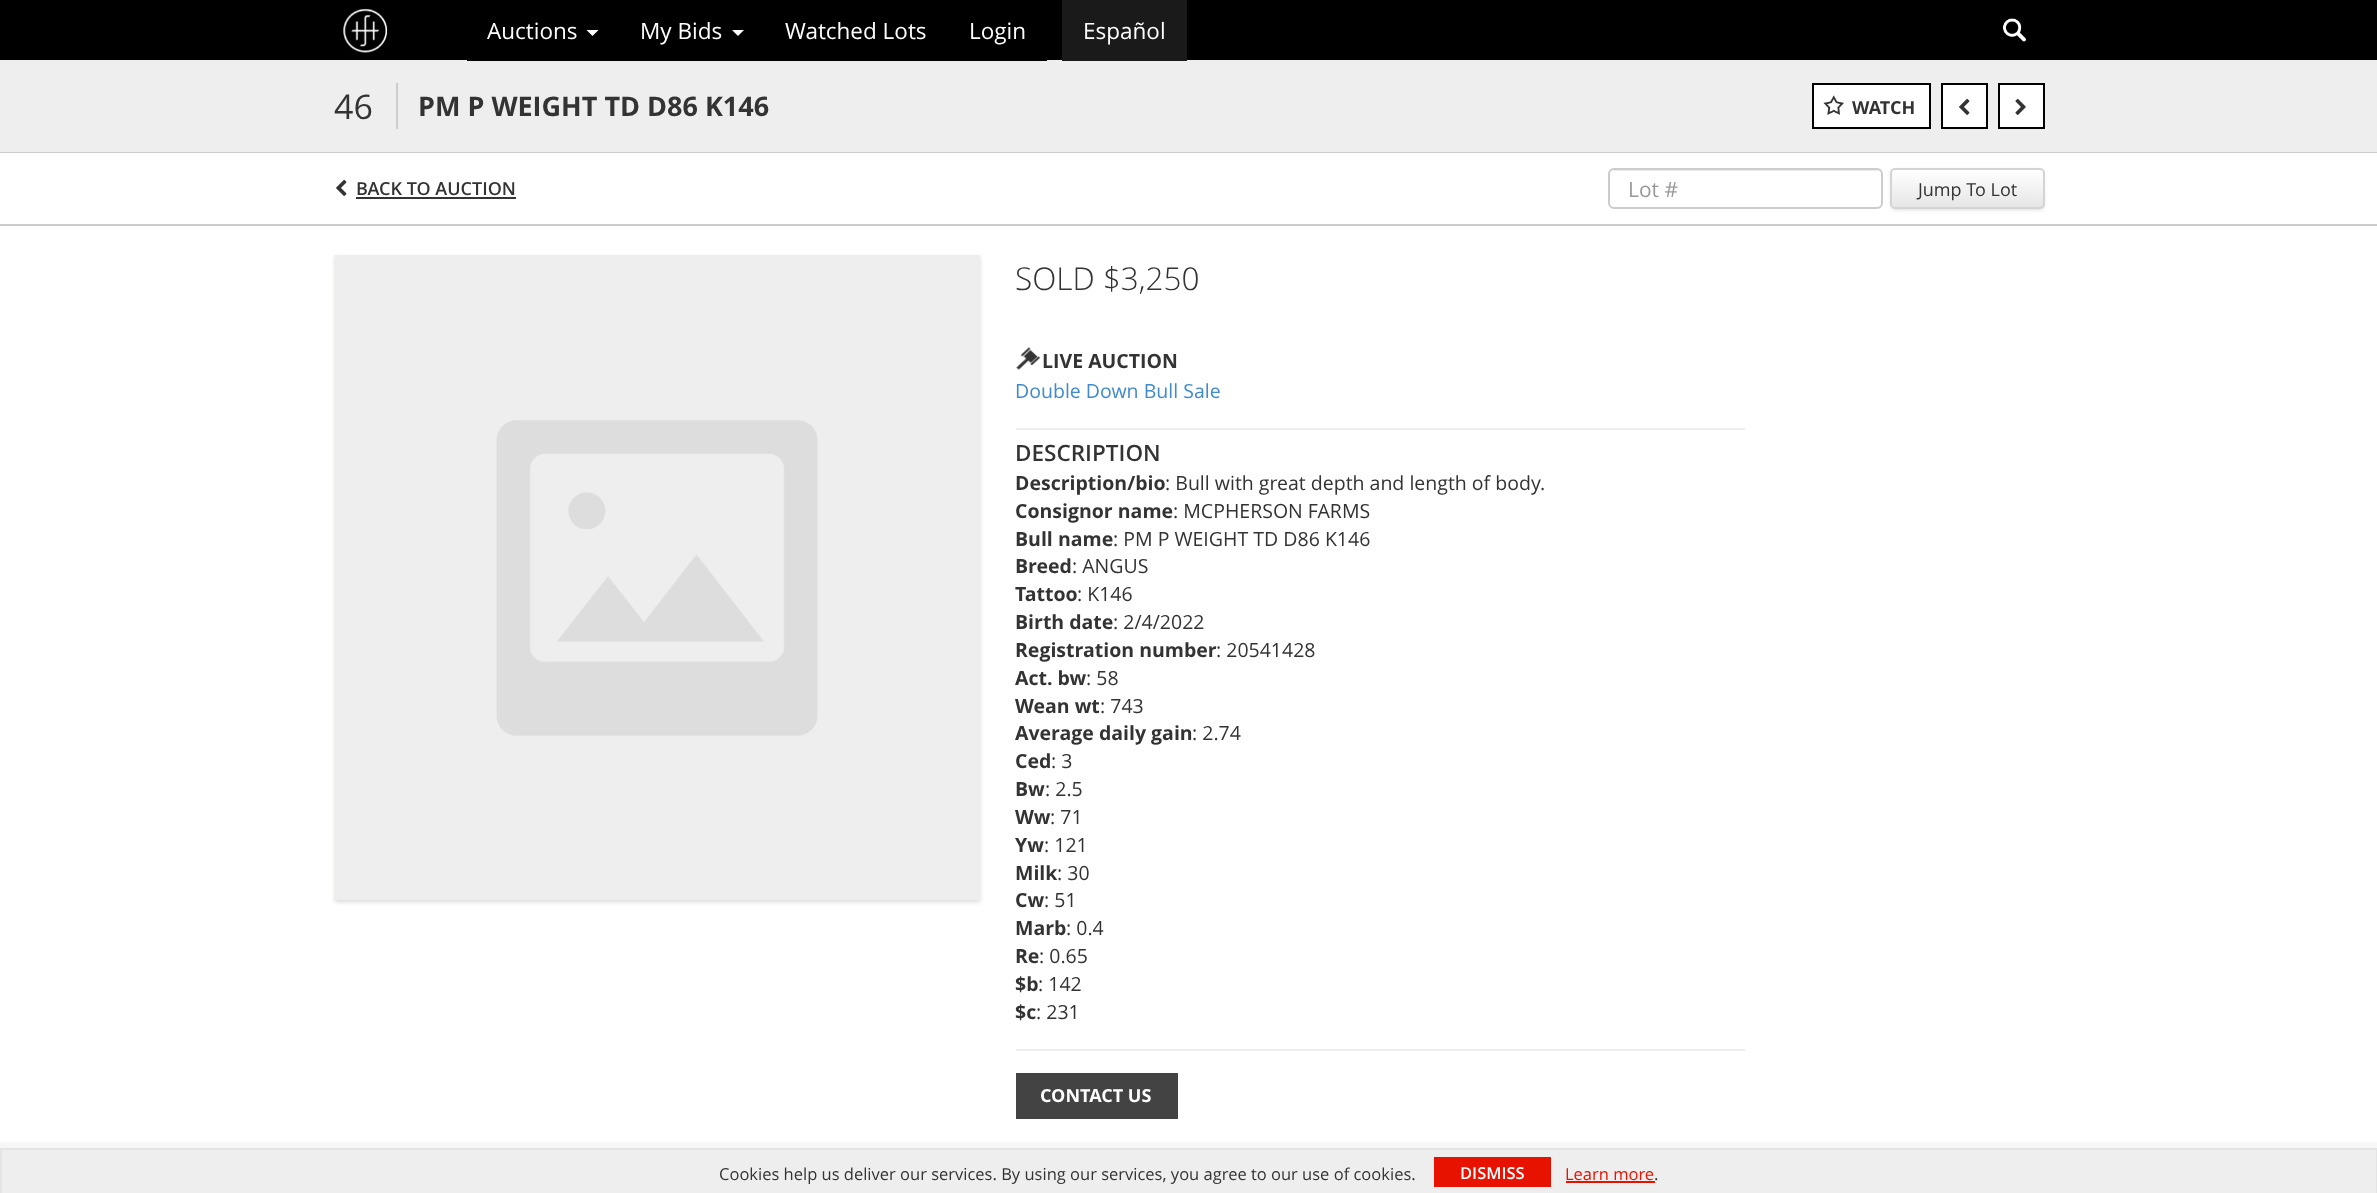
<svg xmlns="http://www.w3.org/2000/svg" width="2377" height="1193">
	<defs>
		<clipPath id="clip1"><rect x="1890" y="168" width="155" height="41" rx="5" /></clipPath>
		<linearGradient id="g1" gradientUnits="userSpaceOnUse" x1="1967" y1="170" x2="1967" y2="207"><stop offset="0" stop-color="#FFFFFF" /><stop offset="1" stop-color="#E6E6E6" /></linearGradient>
	</defs>
	<rect width="100%" height="100%" fill="#FFFFFF" />
	<rect x="0" y="0" width="2377" height="60" fill="#000000" />
	<image x="343" y="8" width="45" height="45" href="assets/img1.png" />
	<rect x="0" y="60" width="2377" height="92" fill="#EEEEEE" />
	<rect x="467" y="60" width="580" height="1" fill="#000000" />
	<text x="487" y="39" font-family="Open Sans" font-size="22.5" fill="#FFFFFF">Auctions</text>
	<path d="M586.5 30H598.5L592.5 36Z" fill="#FFFFFF" />
	<text x="640" y="39" font-family="Open Sans" font-size="22.5" fill="#FFFFFF">My Bids</text>
	<path d="M732 30H744L738 36Z" fill="#FFFFFF" />
	<g font-family="Open Sans" font-size="22.5" fill="#FFFFFF">
		<text x="785" y="39">Watched Lots</text>
		<text x="969" y="39">Login</text>
	</g>
	<rect x="1062" y="0" width="125" height="61" fill="#1A1A1A" />
	<text x="1083" y="39" font-family="Open Sans" font-size="22.5" fill="#FFFFFF">Español</text>
	<image x="2003" y="18" width="23" height="24" href="assets/img2.png" />
	<rect x="0" y="152" width="2377" height="1" fill="#CCCCCC" />
	<text x="334" y="119" font-family="Open Sans" font-size="34" fill="#333333">46</text>
	<rect x="396" y="83" width="2" height="46" fill="#CCCCCC" />
	<text x="418" y="116" font-family="Open Sans" font-size="27" font-weight="700" fill="#333333">PM P WEIGHT TD D86 K146</text>
	<rect x="1813" y="84" width="117" height="44" fill="#FFFFFF" stroke="#000000" stroke-width="2" />
	<image x="1823" y="95" width="21" height="20" href="assets/img3.png" />
	<text x="1852" y="114" font-family="Open Sans" font-size="18" font-weight="700" fill="#333333">WATCH</text>
	<rect x="1942" y="84" width="45" height="44" fill="#FFFFFF" stroke="#000000" stroke-width="2" />
	<image x="1959" y="98" width="11" height="17" href="assets/img4.png" />
	<rect x="1999" y="84" width="45" height="44" fill="#FFFFFF" stroke="#000000" stroke-width="2" />
	<image x="2015" y="98" width="11" height="17" href="assets/img5.png" />
	<image x="336" y="179" width="11" height="17" href="assets/img4.png" />
	<text x="356" y="195" font-family="Open Sans" font-size="18" font-weight="600" fill="#333333">BACK TO AUCTION</text>
	<rect x="356" y="197" width="160" height="2" fill="#333333" />
	<path d="M1614 171H1876C1879 171 1881 173 1881 176C1881 173 1879 170 1876 170H1615C1612 170 1610 173 1610 176C1610 173 1612 171 1614 171Z" fill="#ECECEC" />
	<rect x="1609" y="169" width="273" height="39" rx="5" fill="none" stroke="#CCCCCC" stroke-width="2" />
	<text x="1628" y="197" font-family="Open Sans" font-size="21" fill="#999999">Lot #</text>
	<rect x="1892" y="171" width="151" height="38" rx="3" fill="#000000" fill-opacity="0.2" filter="blur(2px)" />
	<g clip-path="url(#clip1)">
		<rect x="1890" y="170" width="155" height="37" fill="url(#g1)" />
	</g>
	<path d="M1894 171H2040C2042 171 2043 172 2043 174C2043 172 2043 171 2041 170H1919C1912 170 1892 165 1892 174C1892 172 1893 171 1894 171Z" fill="#FFFFFF" fill-opacity="0.4" />
	<rect x="1891" y="169" width="153" height="39" rx="4" fill="none" stroke="#D4D4D4" stroke-width="2" />
	<text x="1918" y="196" font-family="Open Sans" font-size="18" fill="#333333">Jump To Lot</text>
	<rect x="0" y="224" width="2377" height="2" fill="#CCCCCC" />
	<rect x="335" y="257" width="645" height="645" fill="#DAD9D7" filter="blur(2px)" />
	<image x="334" y="255" width="484" height="645" href="assets/img6.png" />
	<rect x="818" y="255" width="162" height="645" fill="#EEEEEE" />
	<text x="1015" y="290" font-family="Open Sans" font-size="31.5" font-weight="300" fill="#333333">SOLD $3,250</text>
	<image x="1016" y="347" width="25" height="23" href="assets/img7.png" />
	<text x="1042" y="368" font-family="Open Sans" font-size="19.5" font-weight="700" fill="#333333">LIVE AUCTION</text>
	<text x="1015" y="398" font-family="Open Sans" font-size="19.5" fill="#428BCA">Double Down Bull Sale</text>
	<rect x="1016" y="428" width="729" height="2" fill="#EEEEEE" />
	<text x="1015" y="461" font-family="Open Sans" font-size="22.5" font-weight="600" fill="#333333">DESCRIPTION</text>
	<text x="1015" y="490" font-family="Open Sans" font-size="19.5" font-weight="700" fill="#333333">Description/bio</text>
	<text x="1165" y="490" font-family="Open Sans" font-size="19.5" fill="#333333">: Bull with great depth and length of body.</text>
	<text x="1015" y="518" font-family="Open Sans" font-size="19.5" font-weight="700" fill="#333333">Consignor name</text>
	<text x="1173" y="518" font-family="Open Sans" font-size="19.5" fill="#333333">: MCPHERSON FARMS</text>
	<text x="1015" y="546" font-family="Open Sans" font-size="19.5" font-weight="700" fill="#333333">Bull name</text>
	<text x="1113" y="546" font-family="Open Sans" font-size="19.5" fill="#333333">: PM P WEIGHT TD D86 K146</text>
	<text x="1015" y="573" font-family="Open Sans" font-size="19.5" font-weight="700" fill="#333333">Breed</text>
	<text x="1072" y="573" font-family="Open Sans" font-size="19.5" fill="#333333">: ANGUS</text>
	<text x="1015" y="601" font-family="Open Sans" font-size="19.5" font-weight="700" fill="#333333">Tattoo</text>
	<text x="1077" y="601" font-family="Open Sans" font-size="19.5" fill="#333333">: K146</text>
	<text x="1015" y="629" font-family="Open Sans" font-size="19.5" font-weight="700" fill="#333333">Birth date</text>
	<text x="1113" y="629" font-family="Open Sans" font-size="19.5" fill="#333333">: 2/4/2022</text>
	<text x="1015" y="657" font-family="Open Sans" font-size="19.5" font-weight="700" fill="#333333">Registration number</text>
	<text x="1216" y="657" font-family="Open Sans" font-size="19.5" fill="#333333">: 20541428</text>
	<text x="1015" y="685" font-family="Open Sans" font-size="19.5" font-weight="700" fill="#333333">Act. bw</text>
	<text x="1086" y="685" font-family="Open Sans" font-size="19.5" fill="#333333">: 58</text>
	<text x="1015" y="713" font-family="Open Sans" font-size="19.5" font-weight="700" fill="#333333">Wean wt</text>
	<text x="1100" y="713" font-family="Open Sans" font-size="19.5" fill="#333333">: 743</text>
	<text x="1015" y="740" font-family="Open Sans" font-size="19.5" font-weight="700" fill="#333333">Average daily gain</text>
	<text x="1192" y="740" font-family="Open Sans" font-size="19.5" fill="#333333">: 2.74</text>
	<text x="1015" y="768" font-family="Open Sans" font-size="19.5" font-weight="700" fill="#333333">Ced</text>
	<text x="1051" y="768" font-family="Open Sans" font-size="19.5" fill="#333333">: 3</text>
	<text x="1015" y="796" font-family="Open Sans" font-size="19.5" font-weight="700" fill="#333333">Bw</text>
	<text x="1045" y="796" font-family="Open Sans" font-size="19.5" fill="#333333">: 2.5</text>
	<text x="1015" y="824" font-family="Open Sans" font-size="19.5" font-weight="700" fill="#333333">Ww</text>
	<text x="1050" y="824" font-family="Open Sans" font-size="19.5" fill="#333333">: 71</text>
	<text x="1015" y="852" font-family="Open Sans" font-size="19.5" font-weight="700" fill="#333333">Yw</text>
	<text x="1044" y="852" font-family="Open Sans" font-size="19.5" fill="#333333">: 121</text>
	<text x="1015" y="880" font-family="Open Sans" font-size="19.5" font-weight="700" fill="#333333">Milk</text>
	<text x="1057" y="880" font-family="Open Sans" font-size="19.5" fill="#333333">: 30</text>
	<text x="1015" y="907" font-family="Open Sans" font-size="19.5" font-weight="700" fill="#333333">Cw</text>
	<text x="1044" y="907" font-family="Open Sans" font-size="19.5" fill="#333333">: 51</text>
	<text x="1015" y="935" font-family="Open Sans" font-size="19.5" font-weight="700" fill="#333333">Marb</text>
	<text x="1066" y="935" font-family="Open Sans" font-size="19.5" fill="#333333">: 0.4</text>
	<text x="1015" y="963" font-family="Open Sans" font-size="19.5" font-weight="700" fill="#333333">Re</text>
	<text x="1039" y="963" font-family="Open Sans" font-size="19.5" fill="#333333">: 0.65</text>
	<text x="1015" y="991" font-family="Open Sans" font-size="19.5" font-weight="700" fill="#333333">$b</text>
	<text x="1038" y="991" font-family="Open Sans" font-size="19.5" fill="#333333">: 142</text>
	<text x="1015" y="1019" font-family="Open Sans" font-size="19.5" font-weight="700" fill="#333333">$c</text>
	<text x="1036" y="1019" font-family="Open Sans" font-size="19.5" fill="#333333">: 231</text>
	<rect x="1016" y="1049" width="729" height="2" fill="#EEEEEE" />
	<rect x="1016" y="1073" width="162" height="46" fill="#434343" />
	<text x="1040" y="1102" font-family="Open Sans" font-size="18" font-weight="700" fill="#FFFFFF">CONTACT US</text>
	<rect x="0" y="1142" width="2377" height="6" fill="#F7F7F7" />
	<rect x="2" y="1150" width="2374" height="43" fill="#EEEEEE" />
	<rect x="0" y="1148" width="2377" height="2" fill="#E4E4E4" />
	<rect x="2376" y="1148" width="1" height="45" fill="#E4E4E4" />
	<rect x="0" y="1148" width="2" height="45" fill="#E4E4E4" />
	<text x="719" y="1180" font-family="Open Sans" font-size="16.5" fill="#333333">Cookies help us deliver our services. By using our services, you agree to our use of cookies.</text>
	<rect x="1434" y="1157" width="117" height="30" fill="#E71200" />
	<text x="1460" y="1179" font-family="Open Sans" font-size="16.5" font-weight="600" fill="#FFFFFF">DISMISS</text>
	<text x="1565" y="1180" font-family="Open Sans" font-size="16.5" fill="#E71200">Learn more</text>
	<rect x="1566" y="1181" width="89" height="2" fill="#E71200" />
	<text x="1654" y="1180" font-family="Open Sans" font-size="16.5" fill="#333333">.</text>
</svg>
